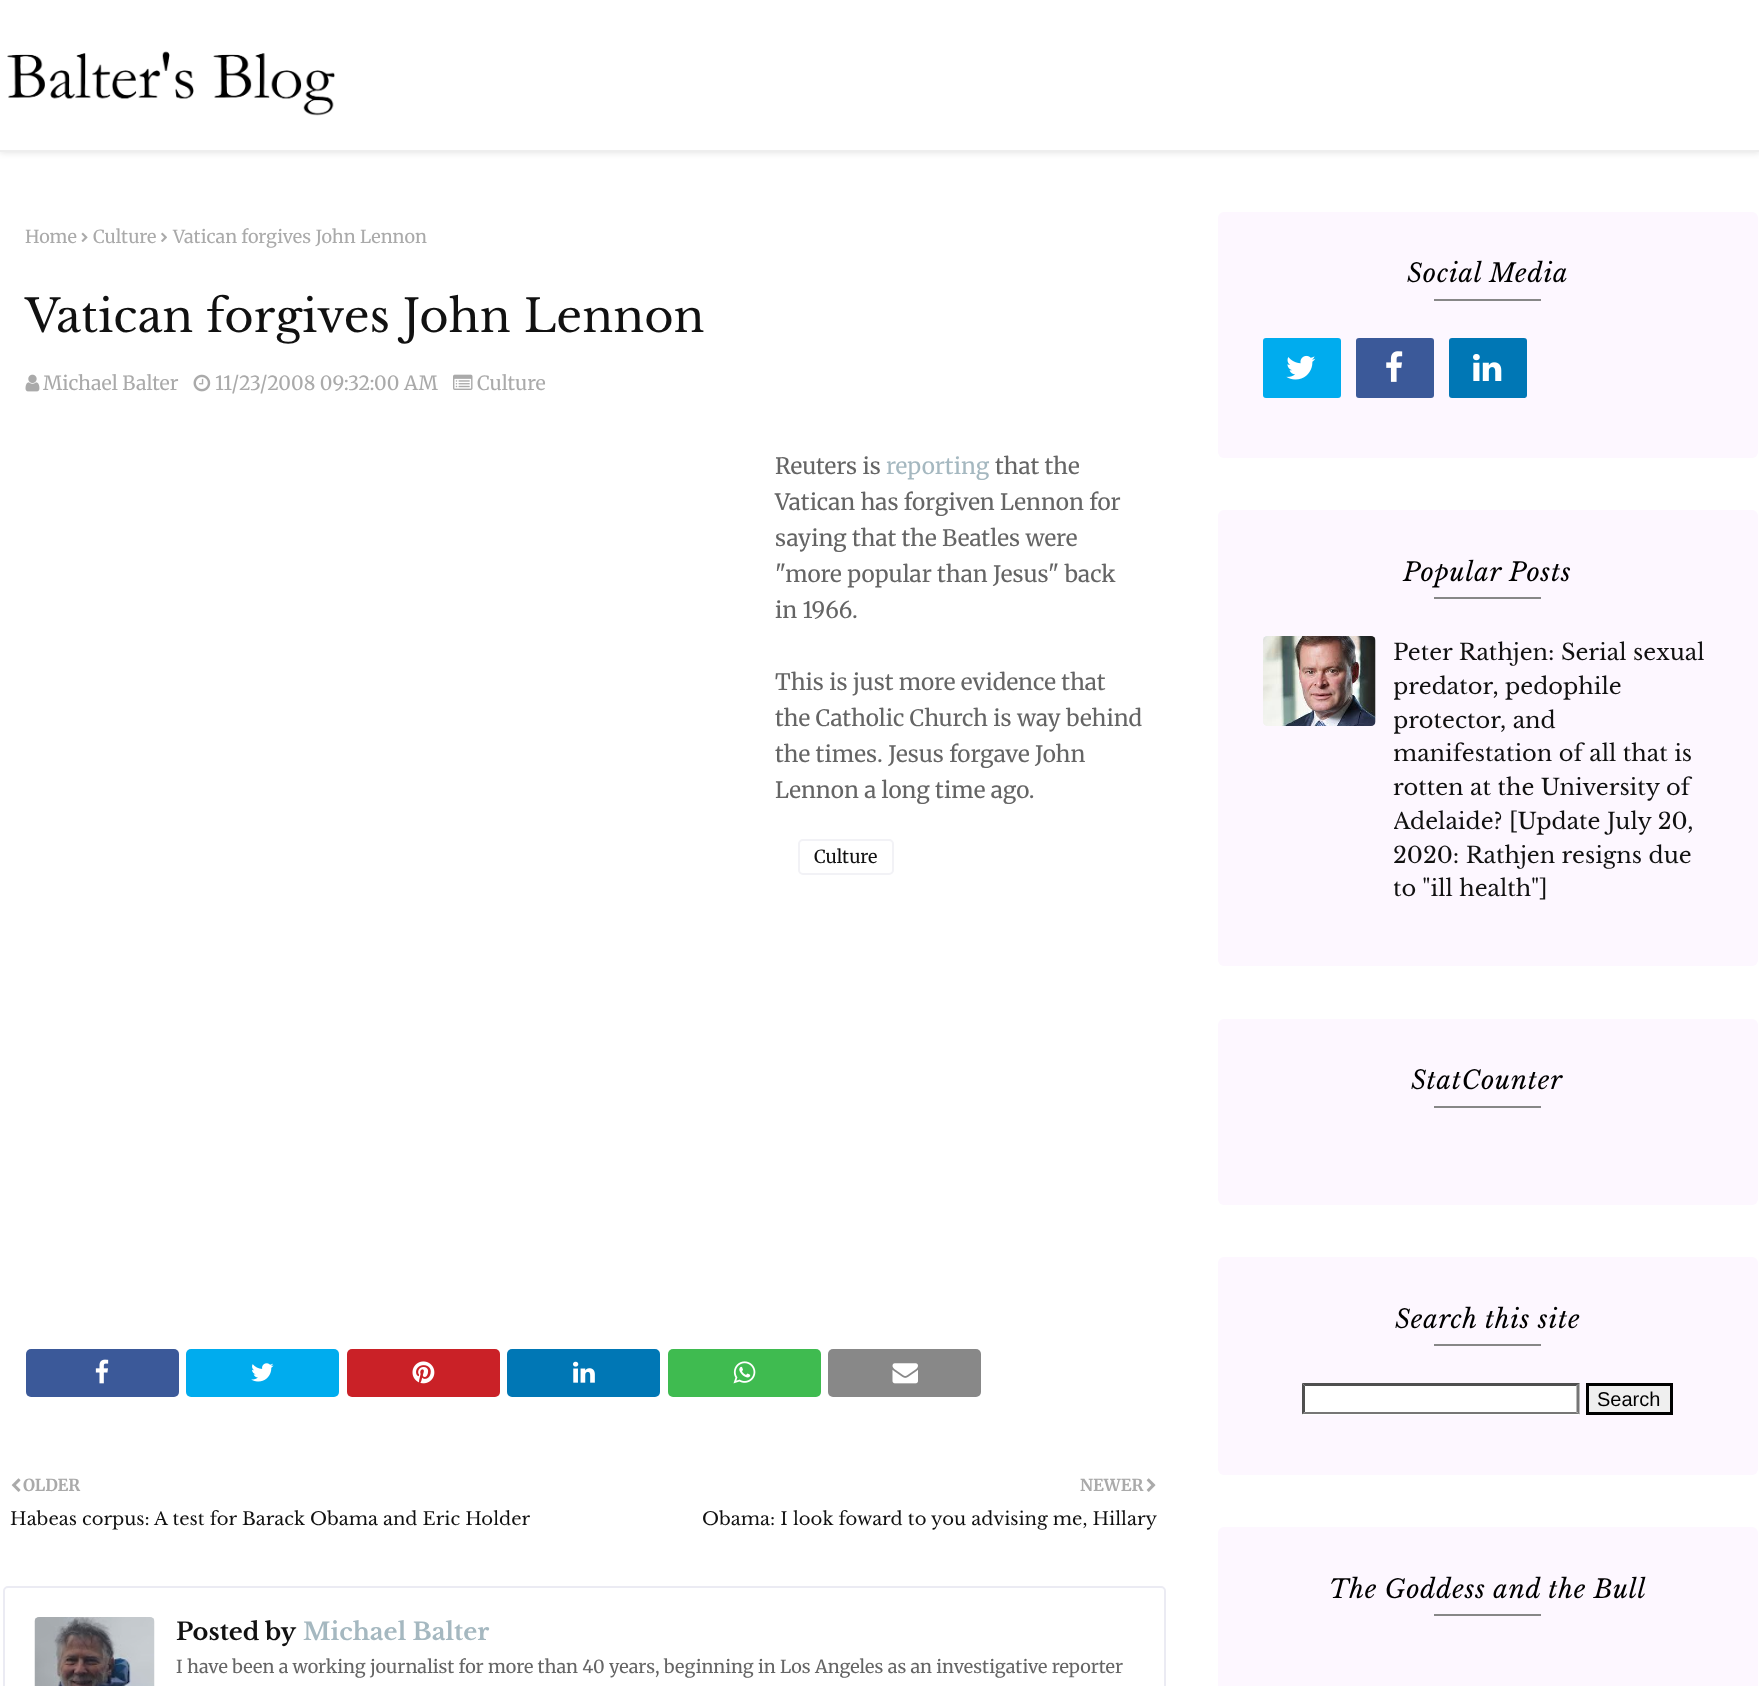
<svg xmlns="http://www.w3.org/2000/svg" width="1759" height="1686">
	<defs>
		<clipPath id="clip1"><rect x="1394" y="636" width="319" height="270" /></clipPath>
	</defs>
	<rect width="100%" height="100%" fill="#FFFFFF" />
	<rect x="0" y="2" width="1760" height="151" fill="#000000" fill-opacity="0.1" filter="blur(3px)" />
	<rect x="0" y="0" width="1759" height="150" fill="#FFFFFF" />
	<rect x="0" y="150" width="1759" height="2" fill="#EEEEEE" />
	<image x="7" y="51" width="328" height="65" href="assets/img1.png" />
	<text x="25" y="243" font-family="Merriweather" font-size="18" font-weight="300" fill="#AAAAAA">Home</text>
	<image x="81" y="232" width="7" height="10" href="assets/img2.png" />
	<text x="93" y="243" font-family="Merriweather" font-size="18" font-weight="300" fill="#AAAAAA">Culture</text>
	<image x="161" y="232" width="6" height="10" href="assets/img3.png" />
	<text x="173" y="243" font-family="Merriweather" font-size="18" font-weight="300" fill="#AAAAAA">Vatican forgives John Lennon</text>
	<text x="25" y="332" font-family="Libre Baskerville" font-size="45" fill="#111111">Vatican forgives John Lennon</text>
	<image x="25" y="374" width="15" height="18" href="assets/img4.png" />
	<text x="43" y="390" font-family="Merriweather" font-size="19.5" font-weight="300" fill="#AAAAAA">Michael Balter</text>
	<image x="193" y="374" width="18" height="18" href="assets/img5.png" />
	<text x="215" y="390" font-family="Merriweather" font-size="19.5" font-weight="300" fill="#AAAAAA">11/23/2008 09:32:00 AM</text>
	<image x="453" y="374" width="20" height="16" href="assets/img6.png" />
	<text x="477" y="390" font-family="Merriweather" font-size="19.5" font-weight="300" fill="#AAAAAA">Culture</text>
	<text x="775" y="474" font-family="Merriweather" font-size="22.5" font-weight="300" fill="#656565">Reuters is</text>
	<text x="886" y="474" font-family="Merriweather" font-size="22.5" font-weight="300" fill="#A5B8C0">reporting</text>
	<g font-family="Merriweather" font-size="22.5" font-weight="300" fill="#656565">
		<text x="995" y="474">that the</text>
		<text x="775" y="510">Vatican has forgiven Lennon for</text>
		<text x="775" y="546">saying that the Beatles were</text>
		<text x="775" y="582">"more popular than Jesus" back</text>
		<text x="775" y="618">in 1966.</text>
		<text x="775" y="690">This is just more evidence that</text>
		<text x="775" y="726">the Catholic Church is way behind</text>
		<text x="775" y="762">the times. Jesus forgave John</text>
		<text x="775" y="798">Lennon a long time ago.</text>
	</g>
	<rect x="799" y="840" width="94" height="34" rx="4" fill="none" stroke="#F2F2F6" stroke-width="2" />
	<text x="814" y="863" font-family="Merriweather" font-size="18" font-weight="300" fill="#111111">Culture</text>
	<rect x="26" y="1349" width="153" height="48" rx="5" fill="#3B5999" />
	<image x="95" y="1359" width="14" height="25" href="assets/img7.png" />
	<rect x="186" y="1349" width="153" height="48" rx="5" fill="#00ACEE" />
	<image x="251" y="1363" width="23" height="19" href="assets/img8.png" />
	<rect x="347" y="1349" width="153" height="48" rx="5" fill="#CA2127" />
	<image x="412" y="1361" width="23" height="23" href="assets/img9.png" />
	<rect x="507" y="1349" width="153" height="48" rx="5" fill="#0077B5" />
	<image x="573" y="1361" width="22" height="22" href="assets/img10.png" />
	<rect x="668" y="1349" width="153" height="48" rx="5" fill="#3FBB50" />
	<image x="733" y="1361" width="23" height="23" href="assets/img11.png" />
	<rect x="828" y="1349" width="153" height="48" rx="5" fill="#888888" />
	<image x="892" y="1363" width="26" height="21" href="assets/img12.png" />
	<image x="11" y="1478" width="10" height="14" href="assets/img13.png" />
	<text x="23" y="1491" font-family="Merriweather" font-size="16.5" font-weight="700" fill="#AAAAAA">OLDER</text>
	<text x="10" y="1525" font-family="Libre Baskerville" font-size="18" fill="#111111">Habeas corpus: A test for Barack Obama and Eric Holder</text>
	<text x="1080" y="1491" font-family="Merriweather" font-size="16.5" font-weight="700" fill="#AAAAAA">NEWER</text>
	<image x="1146" y="1478" width="10" height="14" href="assets/img14.png" />
	<text x="702" y="1525" font-family="Libre Baskerville" font-size="18" fill="#111111">Obama: I look foward to you advising me, Hillary</text>
	<rect x="4" y="1587" width="1161" height="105" rx="4" fill="none" stroke="#EBEBF3" stroke-width="2" />
	<image x="34" y="1617" width="121" height="69" href="assets/img15.png" />
	<text x="176" y="1640" word-spacing="-1" font-family="Libre Baskerville" font-size="24" font-weight="700" fill="#111111">Posted by</text>
	<text x="303" y="1640" font-family="Libre Baskerville" font-size="24" font-weight="700" fill="#A5B8C0">Michael Balter</text>
	<text x="176" y="1673" font-family="Merriweather" font-size="18" font-weight="300" fill="#656565">I have been a working journalist for more than 40 years, beginning in Los Angeles as an investigative reporter</text>
	<rect x="1218" y="212" width="540" height="246" rx="6" fill="#FDF7FF" />
	<text x="1407" y="282" font-family="Libre Baskerville" font-size="25.5" font-style="italic" letter-spacing="0.75" fill="#000000">Social Media</text>
	<rect x="1434" y="299" width="107" height="2" fill="#878787" />
	<rect x="1263" y="338" width="78" height="60" rx="3" fill="#00ACEE" />
	<image x="1286" y="355" width="30" height="25" href="assets/img16.png" />
	<rect x="1356" y="338" width="78" height="60" rx="3" fill="#3B5999" />
	<image x="1386" y="351" width="17" height="31" href="assets/img17.png" />
	<rect x="1449" y="338" width="78" height="60" rx="3" fill="#0077B5" />
	<image x="1473" y="354" width="29" height="27" href="assets/img18.png" />
	<rect x="1218" y="510" width="540" height="456" rx="6" fill="#FDF7FF" />
	<text x="1403" y="581" font-family="Libre Baskerville" font-size="25.5" font-style="italic" letter-spacing="0.75" fill="#000000">Popular Posts</text>
	<rect x="1434" y="597" width="107" height="2" fill="#878787" />
	<rect x="1263" y="636" width="113" height="90" rx="5" fill="#F6F1F8" />
	<image x="1263" y="636" width="113" height="90" href="assets/img19.png" />
	<text x="1393" y="660" font-family="Libre Baskerville" font-size="22.5" fill="#111111">Peter Rathjen: Serial sexual</text>
	<g clip-path="url(#clip1)">
		<g font-family="Libre Baskerville" font-size="22.5" fill="#111111">
			<text x="1393" y="694">predator, pedophile</text>
			<text x="1393" y="728">protector, and</text>
			<text x="1393" y="761">manifestation of all that is</text>
		</g>
	</g>
	<text x="1393" y="795" font-family="Libre Baskerville" font-size="22.5" fill="#111111">rotten at the University of</text>
	<g clip-path="url(#clip1)">
		<text x="1393" y="829" font-family="Libre Baskerville" font-size="22.5" fill="#111111">Adelaide? [Update July 20,</text>
	</g>
	<g font-family="Libre Baskerville" font-size="22.5" fill="#111111">
		<text x="1393" y="863">2020: Rathjen resigns due</text>
		<text x="1393" y="896">to "ill health"]</text>
	</g>
	<rect x="1218" y="1019" width="540" height="186" rx="6" fill="#FDF7FF" />
	<text x="1411" y="1089" font-family="Libre Baskerville" font-size="25.5" font-style="italic" letter-spacing="0.75" fill="#000000">StatCounter</text>
	<rect x="1434" y="1106" width="107" height="2" fill="#878787" />
	<rect x="1218" y="1257" width="540" height="218" rx="6" fill="#FDF7FF" />
	<text x="1395" y="1328" font-family="Libre Baskerville" font-size="25.5" font-style="italic" letter-spacing="0.75" fill="#000000">Search this site</text>
	<rect x="1434" y="1344" width="107" height="2" fill="#878787" />
	<rect x="1302" y="1383" width="278" height="32" fill="#FFFFFF" />
	<path d="M1302 1383H1580L1576 1386H1305Z" fill="#4F4F4F" />
	<path d="M1579.5 1383V1414.5L1576.5 1411.5V1386Z" fill="#767676" />
	<path d="M1580 1414H1302L1305 1412H1576Z" fill="#767676" />
	<path d="M1302 1414.5V1383L1305 1386V1411.5Z" fill="#4F4F4F" />
	<rect x="1587.5" y="1384.5" width="84" height="29" fill="#EFEFEF" stroke="#000000" stroke-width="3" />
	<text x="1597" y="1406" font-family="Liberation Sans" font-size="20" fill="#000000">Search</text>
	<rect x="1218" y="1527" width="540" height="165" rx="6" fill="#FDF7FF" />
	<text x="1329" y="1598" font-family="Libre Baskerville" font-size="25.5" font-style="italic" letter-spacing="0.75" fill="#000000">The Goddess and the Bull</text>
	<rect x="1434" y="1614" width="107" height="2" fill="#878787" />
</svg>
